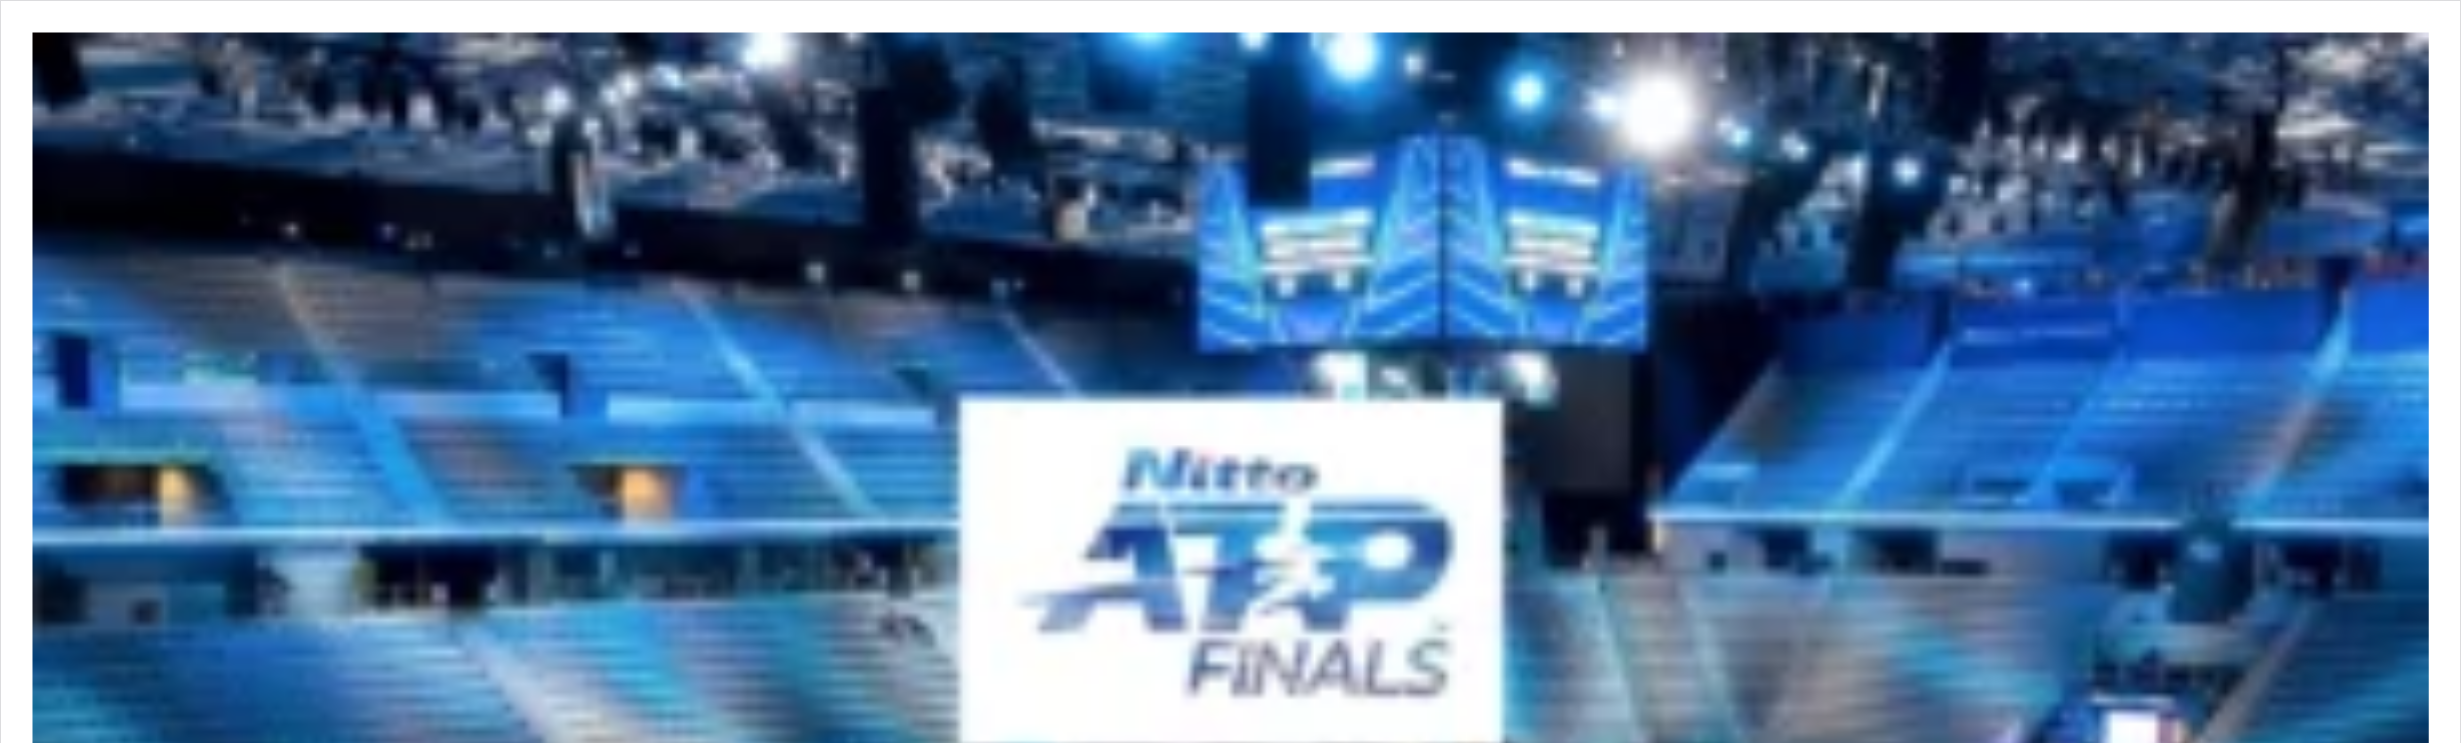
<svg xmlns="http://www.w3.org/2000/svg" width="2461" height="743">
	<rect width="100%" height="100%" fill="#FFFFFF" />
	<rect x="0.5" y="0.5" width="2460" height="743" fill="none" stroke="#DCDCDE" />
	<image x="32" y="32" width="2397" height="711" href="assets/img1.png" />
</svg>
